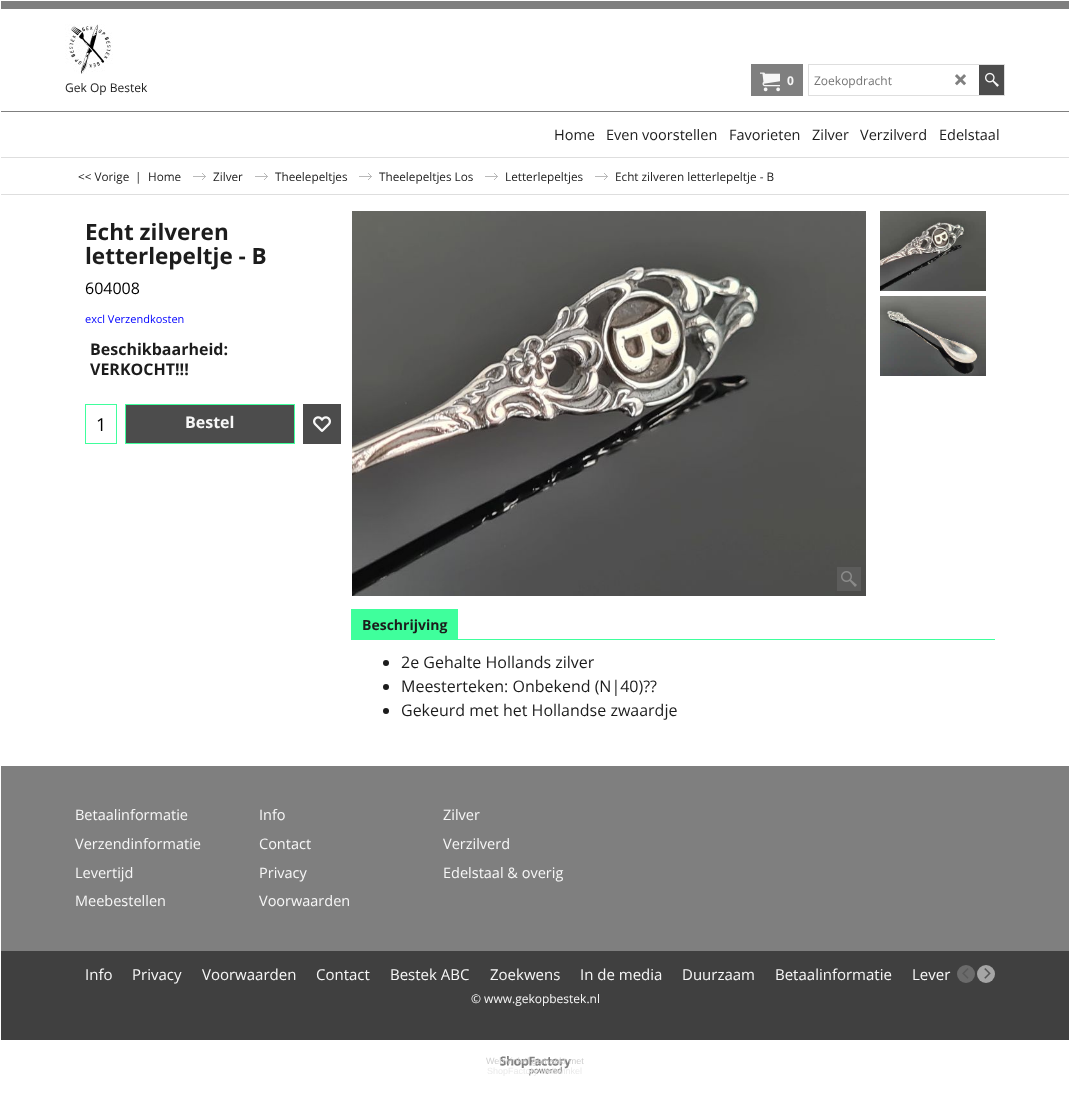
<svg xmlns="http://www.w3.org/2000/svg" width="1070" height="1109">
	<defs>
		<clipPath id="clip1"><rect x="1" y="1" width="1068" height="1039" /></clipPath>
	</defs>
	<rect width="100%" height="100%" fill="#FFFFFF" />
	<rect x="1" y="1" width="1068" height="8" fill="#7F7F7F" />
	<rect x="1" y="111" width="1068" height="1" fill="#7F7F7F" />
	<image x="65" y="24" width="48" height="50" href="assets/img1.png" />
	<text x="65" y="92" font-family="Open Sans" font-size="12" fill="#1C1C1C">Gek Op Bestek</text>
	<rect x="751" y="64" width="52" height="32" fill="#7F7F7F" />
	<image x="760" y="72" width="20" height="20" href="assets/img2.png" />
	<text x="787" y="85" font-family="Open Sans" font-size="12" font-weight="700" fill="#F7F7F7">0</text>
	<rect x="808" y="64" width="197" height="32" fill="#DEDEDE" />
	<rect x="809" y="65" width="170" height="30" fill="#FFFFFF" />
	<text x="814" y="85" font-family="Open Sans" font-size="12" fill="#757575">Zoekopdracht</text>
	<image x="955" y="74" width="11" height="12" href="assets/img3.png" />
	<rect x="979" y="65" width="25" height="30" fill="#4C4C4C" />
	<image x="985" y="72" width="14" height="15" href="assets/img4.png" />
	<g font-family="Open Sans" font-size="14.5" fill="#1C1C1C">
		<text x="554" y="140">Home</text>
		<text x="606" y="140">Even voorstellen</text>
		<text x="729" y="140">Favorieten</text>
		<text x="812" y="140">Zilver</text>
		<text x="860" y="140">Verzilverd</text>
		<text x="939" y="140">Edelstaal</text>
	</g>
	<g clip-path="url(#clip1)">
		<rect x="-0.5" y="157.5" width="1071" height="37" fill="none" stroke="#DEDEDE" />
	</g>
	<g font-family="Open Sans" font-size="11.75" fill="#1C1C1C">
		<text x="78" y="181">&lt;&lt; Vorige</text>
		<text x="135" y="181">|</text>
		<text x="148" y="181">Home</text>
	</g>
	<image x="193" y="173" width="13" height="7" href="assets/img5.png" />
	<text x="213" y="181" font-family="Open Sans" font-size="11.75" fill="#1C1C1C">Zilver</text>
	<image x="255" y="173" width="13" height="7" href="assets/img5.png" />
	<text x="275" y="181" font-family="Open Sans" font-size="11.75" fill="#1C1C1C">Theelepeltjes</text>
	<image x="359" y="173" width="13" height="7" href="assets/img5.png" />
	<text x="379" y="181" font-family="Open Sans" font-size="11.75" fill="#1C1C1C">Theelepeltjes Los</text>
	<image x="485" y="173" width="13" height="7" href="assets/img5.png" />
	<text x="505" y="181" font-family="Open Sans" font-size="11.75" fill="#1C1C1C">Letterlepeltjes</text>
	<image x="595" y="173" width="13" height="7" href="assets/img5.png" />
	<text x="615" y="181" font-family="Open Sans" font-size="11.75" fill="#1C1C1C">Echt zilveren letterlepeltje - B</text>
	<g font-family="Open Sans" font-size="22.5" font-weight="700" fill="#1C1C1C">
		<text x="85" y="240">Echt zilveren</text>
		<text x="85" y="264">letterlepeltje - B</text>
	</g>
	<text x="85" y="294" font-family="Open Sans" font-size="16" fill="#000000">604008</text>
	<text x="85" y="323" font-family="Open Sans" font-size="11" fill="#0000FF">excl Verzendkosten</text>
	<g font-family="Open Sans" font-size="16" font-weight="700" fill="#1C1C1C">
		<text x="90" y="355">Beschikbaarheid:</text>
		<text x="90" y="375">VERKOCHT!!!</text>
	</g>
	<rect x="85.5" y="404.5" width="31" height="39" fill="none" stroke="#3FFF9C" />
	<text x="96" y="431" font-family="Open Sans" font-size="18" fill="#000000">1</text>
	<rect x="125.5" y="404.5" width="169" height="39" fill="#4C4C4C" stroke="#3FFF9C" />
	<text x="185" y="428" font-family="Open Sans" font-size="16" font-weight="700" fill="#F7F7F7">Bestel</text>
	<rect x="303" y="404" width="38" height="40" fill="#4C4C4C" />
	<image x="313" y="416" width="18" height="16" href="assets/img6.png" />
	<image x="352" y="211" width="514" height="385" href="assets/img7.png" />
	<rect x="837" y="567" width="24" height="24" fill="#5C5C5B" />
	<image x="841" y="571" width="16" height="16" href="assets/img8.png" />
	<image x="880" y="211" width="106" height="80" href="assets/img9.png" />
	<image x="880" y="296" width="106" height="80" href="assets/img10.png" />
	<rect x="351" y="609" width="107" height="31" fill="#3FFF9C" />
	<text x="362" y="630" font-family="Open Sans" font-size="14" font-weight="700" fill="#1C1C1C">Beschrijving</text>
	<rect x="458" y="639" width="537" height="1" fill="#3FFF9C" />
	<circle cx="386" cy="663" r="3" fill="#1C1C1C" />
	<text x="401" y="668" font-family="Open Sans" font-size="16" fill="#1C1C1C">2e Gehalte Hollands zilver</text>
	<circle cx="386" cy="687" r="3" fill="#1C1C1C" />
	<text x="401" y="692" font-family="Open Sans" font-size="16" fill="#1C1C1C">Meesterteken: Onbekend (N|40)??</text>
	<circle cx="386" cy="711" r="3" fill="#1C1C1C" />
	<text x="401" y="716" font-family="Open Sans" font-size="16" fill="#1C1C1C">Gekeurd met het Hollandse zwaardje</text>
	<rect x="1" y="766" width="1068" height="185" fill="#7F7F7F" />
	<g font-family="Open Sans" font-size="14.5" fill="#F7F7F7">
		<text x="75" y="820">Betaalinformatie</text>
		<text x="75" y="849">Verzendinformatie</text>
		<text x="75" y="878">Levertijd</text>
		<text x="75" y="906">Meebestellen</text>
		<text x="259" y="820">Info</text>
		<text x="259" y="849">Contact</text>
		<text x="259" y="878">Privacy</text>
		<text x="259" y="906">Voorwaarden</text>
		<text x="443" y="820">Zilver</text>
		<text x="443" y="849">Verzilverd</text>
		<text x="443" y="878">Edelstaal &amp; overig</text>
	</g>
	<rect x="1" y="951" width="1068" height="89" fill="#404040" />
	<g font-family="Open Sans" font-size="15" fill="#F7F7F7">
		<text x="85" y="980">Info</text>
		<text x="132" y="980">Privacy</text>
		<text x="202" y="980">Voorwaarden</text>
		<text x="316" y="980">Contact</text>
		<text x="390" y="980">Bestek ABC</text>
		<text x="490" y="980">Zoekwens</text>
		<text x="580" y="980">In de media</text>
		<text x="682" y="980">Duurzaam</text>
		<text x="775" y="980">Betaalinformatie</text>
		<text x="912" y="980">Lever</text>
	</g>
	<circle cx="966" cy="974" r="9" fill="#6B6B6B" />
	<image x="962" y="968" width="7" height="11" href="assets/img11.png" />
	<circle cx="986" cy="974" r="9" fill="#A5A5A5" />
	<image x="984" y="968" width="7" height="11" href="assets/img12.png" />
	<text x="471" y="1003" font-family="Open Sans" font-size="12" fill="#F7F7F7">© www.gekopbestek.nl</text>
	<image x="500" y="1056" width="71" height="20" href="assets/img13.png" />
	<text x="486" y="1064" font-family="Liberation Sans" font-size="9" fill="#CECECE">Webwinkel gemaakt met</text>
	<text x="487" y="1074" font-family="Liberation Sans" font-size="9" fill="#EAEAEA">ShopFactory webwinkel</text>
</svg>
